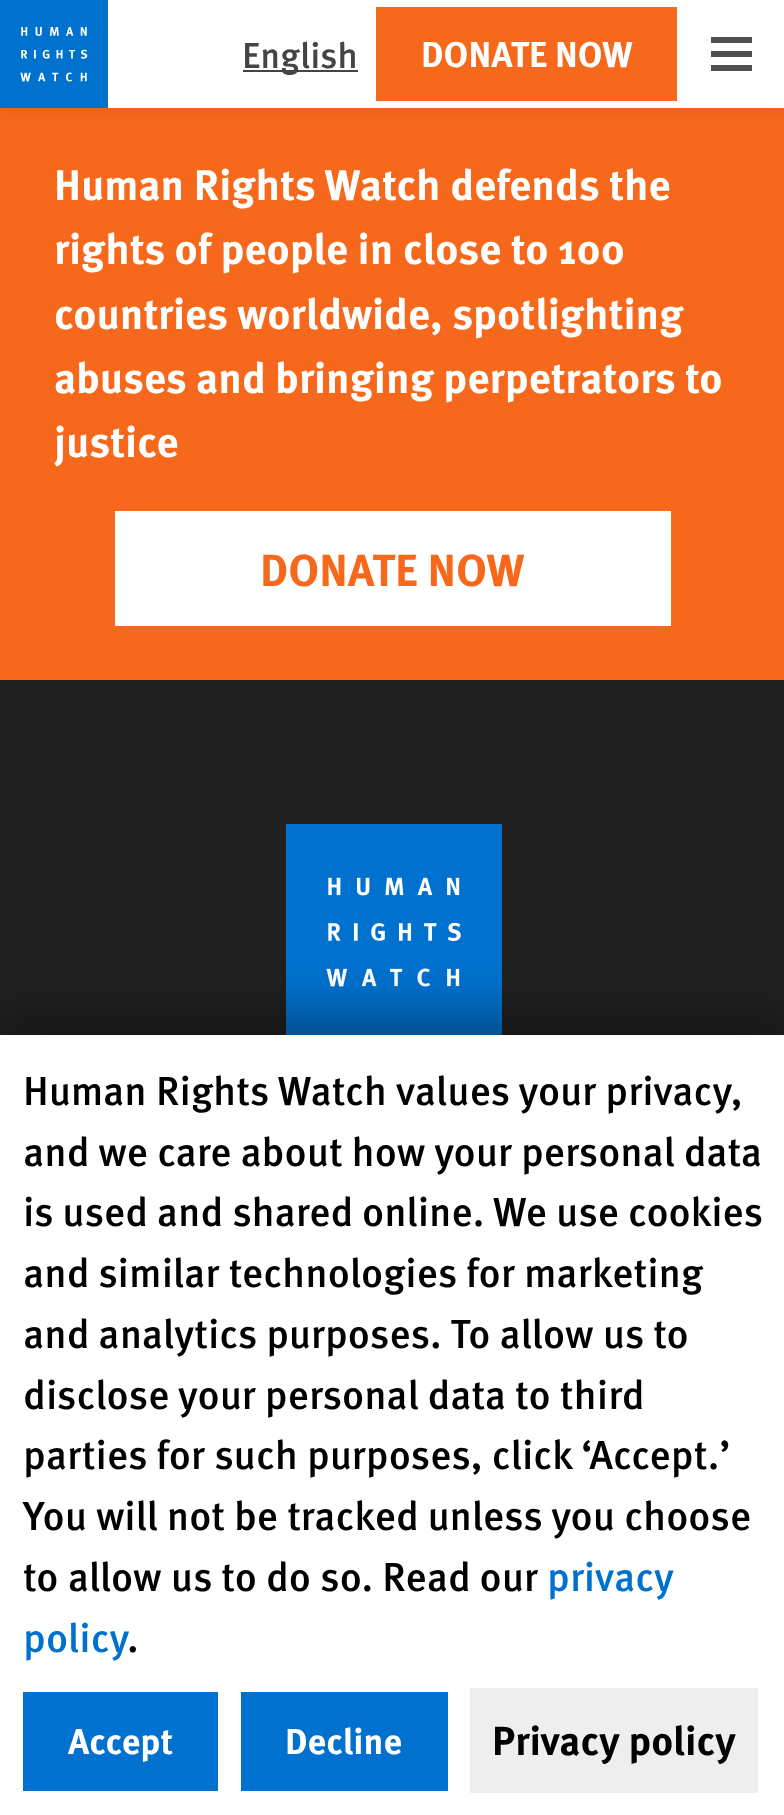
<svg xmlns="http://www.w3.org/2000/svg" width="784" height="1815">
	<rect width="100%" height="100%" fill="#F6691C" />
	<rect x="0" y="0" width="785" height="108" fill="#000000" fill-opacity="0.1" filter="blur(9px)" />
	<rect x="108" y="0" width="676" height="108" fill="#FFFFFF" />
	<image x="0" y="0" width="108" height="108" href="assets/img1.png" />
	<rect x="243" y="70" width="115" height="2" fill="#444444" />
	<text x="242" y="68" font-family="'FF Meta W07'" font-size="36" font-weight="500" fill="#444444">English</text>
	<rect x="376" y="7" width="301" height="94" fill="#F6691C" />
	<text x="421" y="67" font-family="'FF Meta W07'" font-size="36" font-weight="700" fill="#FFFFFF">DONATE NOW</text>
	<rect x="711" y="37" width="41" height="6" fill="#505050" />
	<rect x="711" y="51" width="41" height="6" fill="#505050" />
	<rect x="711" y="65" width="41" height="6" fill="#505050" />
	<g font-family="'FF Meta W07'" font-size="42.75" font-weight="700" fill="#FFFFFF">
		<text x="54" y="200">Human Rights Watch defends the</text>
		<text x="54" y="264">rights of people in close to 100</text>
		<text x="54" y="329">countries worldwide, spotlighting</text>
		<text x="54" y="393">abuses and bringing perpetrators to</text>
		<text x="54" y="457">justice</text>
	</g>
	<rect x="115" y="511" width="556" height="115" fill="#FFFFFF" />
	<text x="260" y="586" font-family="'FF Meta W07'" font-size="45" font-weight="700" fill="#F6691C">DONATE NOW</text>
	<rect x="0" y="680" width="784" height="355" fill="#202020" />
	<image x="286" y="824" width="216" height="211" href="assets/img2.png" />
	<rect x="-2" y="1010" width="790" height="786" fill="#000000" fill-opacity="0.3" filter="blur(22.5px)" />
	<rect x="0" y="1035" width="784" height="780" fill="#FFFFFF" />
	<g font-family="'FF Meta W07'" font-size="40.5" font-weight="500" fill="#000000">
		<text x="23" y="1105">Human Rights Watch values your privacy,</text>
		<text x="23" y="1166">and we care about how your personal data</text>
		<text x="23" y="1226">is used and shared online. We use cookies</text>
		<text x="23" y="1287">and similar technologies for marketing</text>
		<text x="23" y="1348">and analytics purposes. To allow us to</text>
		<text x="23" y="1409">disclose your personal data to third</text>
		<text x="23" y="1469">parties for such purposes, click ‘Accept.’</text>
		<text x="23" y="1530">You will not be tracked unless you choose</text>
		<text x="23" y="1591">to allow us to do so. Read our</text>
	</g>
	<g font-family="'FF Meta W07'" font-size="40.5" font-weight="500" fill="#0071CE">
		<text x="547" y="1591">privacy</text>
		<text x="23" y="1652">policy</text>
	</g>
	<text x="127" y="1652" font-family="'FF Meta W07'" font-size="40.5" font-weight="500" fill="#000000">.</text>
	<rect x="23" y="1692" width="195" height="99" fill="#0071CE" />
	<text x="68" y="1754" font-family="'FF Meta W07'" font-size="36" font-weight="700" fill="#FFFFFF">Accept</text>
	<rect x="241" y="1692" width="207" height="99" fill="#0071CE" />
	<text x="285" y="1754" font-family="'FF Meta W07'" font-size="36" font-weight="700" fill="#FFFFFF">Decline</text>
	<rect x="470" y="1688" width="288" height="105" fill="#EEEEEE" />
	<text x="492" y="1755" font-family="'FF Meta W07'" font-size="40.5" font-weight="700" fill="#000000">Privacy policy</text>
</svg>
